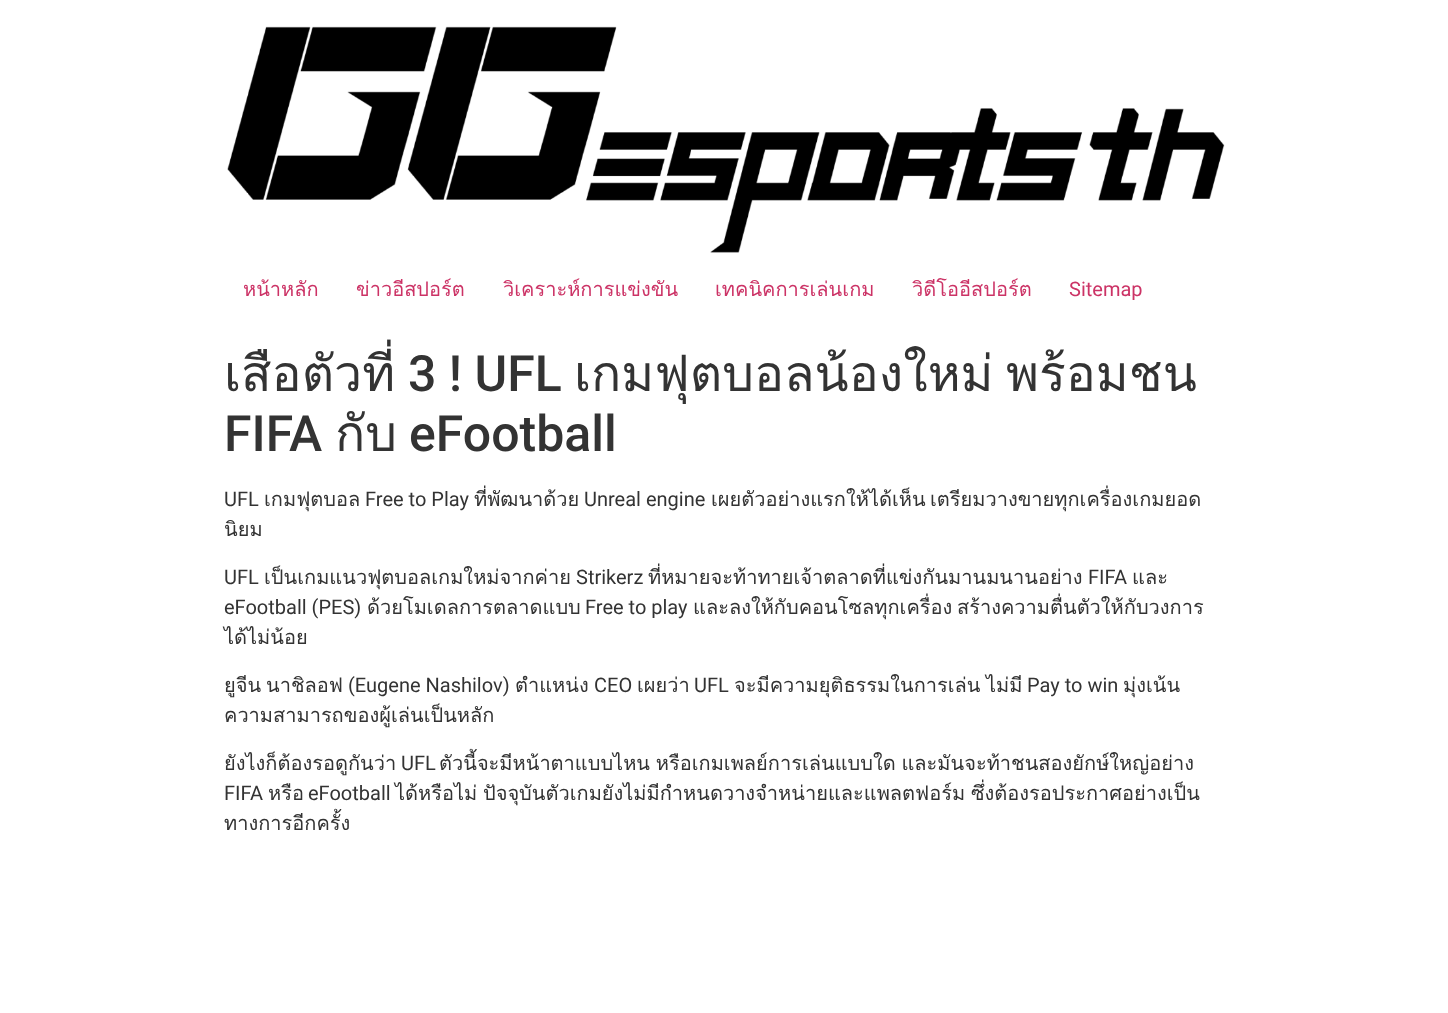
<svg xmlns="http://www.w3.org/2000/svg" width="1448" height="1013">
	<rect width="100%" height="100%" fill="#FFFFFF" />
	<image x="227" y="26" width="998" height="227" href="assets/img1.png" />
	<g font-family="Loma" font-size="20" fill="#CC3366">
		<text x="243" y="296">หน้าหลัก</text>
		<text x="356" y="296">ข่าวอีสปอร์ต</text>
		<text x="503" y="296">วิเคราะห์การแข่งขัน</text>
		<text x="715" y="296">เทคนิคการเล่นเกม</text>
		<text x="912" y="296">วิดีโออีสปอร์ต</text>
	</g>
	<text x="1069" y="296" font-family="Roboto" font-size="20" fill="#CC3366">Sitemap</text>
	<text x="224" y="391" font-family="Loma" font-size="50" fill="#333333">เสือตัวที่</text>
	<text x="408" y="391" font-family="Roboto" font-size="50" font-weight="500" fill="#333333">3 ! UFL</text>
	<g font-family="Loma" font-size="50" fill="#333333">
		<text x="574" y="391">เกมฟุตบอลน้องใหม่</text>
		<text x="1006" y="391">พร้อมชน</text>
	</g>
	<text x="224" y="451" font-family="Roboto" font-size="50" font-weight="500" fill="#333333">FIFA</text>
	<text x="335" y="451" font-family="Loma" font-size="50" fill="#333333">กับ</text>
	<text x="409" y="451" font-family="Roboto" font-size="50" font-weight="500" fill="#333333">eFootball</text>
	<text x="224" y="506" font-family="Roboto" font-size="20" fill="#333333">UFL</text>
	<text x="264" y="506" font-family="Loma" font-size="20" fill="#333333">เกมฟุตบอล</text>
	<text x="365" y="506" font-family="Roboto" font-size="20" fill="#333333">Free to Play</text>
	<text x="474" y="506" font-family="Loma" font-size="20" fill="#333333">ที่พัฒนาด้วย</text>
	<text x="584" y="506" font-family="Roboto" font-size="20" fill="#333333">Unreal engine</text>
	<g font-family="Loma" font-size="20" fill="#333333">
		<text x="711" y="506">เผยตัวอย่างแรกให้ได้เห็น</text>
		<text x="930" y="506">เตรียมวางขายทุกเครื่องเกมยอด</text>
		<text x="224" y="536">นิยม</text>
	</g>
	<text x="224" y="584" font-family="Roboto" font-size="20" fill="#333333">UFL</text>
	<text x="264" y="584" font-family="Loma" font-size="20" fill="#333333">เป็นเกมแนวฟุตบอลเกมใหม่จากค่าย</text>
	<text x="576" y="584" font-family="Roboto" font-size="20" fill="#333333">Strikerz</text>
	<text x="648" y="584" font-family="Loma" font-size="20" fill="#333333">ที่หมายจะท้าทายเจ้าตลาดที่แข่งกันมานมนานอย่าง</text>
	<text x="1088" y="584" font-family="Roboto" font-size="20" fill="#333333">FIFA</text>
	<text x="1132" y="584" font-family="Loma" font-size="20" fill="#333333">และ</text>
	<text x="224" y="614" font-family="Roboto" font-size="20" fill="#333333">eFootball (PES)</text>
	<text x="367" y="614" font-family="Loma" font-size="20" fill="#333333">ด้วยโมเดลการตลาดแบบ</text>
	<text x="585" y="614" font-family="Roboto" font-size="20" fill="#333333">Free to play</text>
	<g font-family="Loma" font-size="20" fill="#333333">
		<text x="693" y="614">และลงให้กับคอนโซลทุกเครื่อง</text>
		<text x="957" y="614">สร้างความตื่นตัวให้กับวงการ</text>
		<text x="224" y="644">ได้ไม่น้อย</text>
		<text x="224" y="692">ยูจีน</text>
		<text x="266" y="692">นาชิลอฟ</text>
	</g>
	<text x="348" y="692" font-family="Roboto" font-size="20" fill="#333333">(Eugene Nashilov)</text>
	<text x="515" y="692" font-family="Loma" font-size="20" fill="#333333">ตำแหน่ง</text>
	<text x="594" y="692" font-family="Roboto" font-size="20" fill="#333333">CEO</text>
	<text x="637" y="692" font-family="Loma" font-size="20" fill="#333333">เผยว่า</text>
	<text x="694" y="692" font-family="Roboto" font-size="20" fill="#333333">UFL</text>
	<g font-family="Loma" font-size="20" fill="#333333">
		<text x="734" y="692">จะมีความยุติธรรมในการเล่น</text>
		<text x="986" y="692">ไม่มี</text>
	</g>
	<text x="1027" y="692" font-family="Roboto" font-size="20" fill="#333333">Pay to win</text>
	<g font-family="Loma" font-size="20" fill="#333333">
		<text x="1123" y="692">มุ่งเน้น</text>
		<text x="224" y="722">ความสามารถของผู้เล่นเป็นหลัก</text>
		<text x="224" y="770">ยังไงก็ต้องรอดูกันว่า</text>
	</g>
	<text x="401" y="770" font-family="Roboto" font-size="20" fill="#333333">UFL</text>
	<text x="439" y="770" word-spacing="-1" font-family="Loma" font-size="20" fill="#333333">ตัวนี้จะมีหน้าตาแบบไหน หรือเกมเพลย์การเล่นแบบใด และมันจะท้าชนสองยักษ์ใหญ่อย่าง</text>
	<text x="224" y="800" font-family="Roboto" font-size="20" fill="#333333">FIFA</text>
	<text x="268" y="800" font-family="Loma" font-size="20" fill="#333333">หรือ</text>
	<text x="308" y="800" font-family="Roboto" font-size="20" fill="#333333">eFootball</text>
	<g font-family="Loma" font-size="20" fill="#333333">
		<text x="395" y="800" word-spacing="-1">ได้หรือไม่ ปัจจุบันตัวเกมยังไม่มีกำหนดวางจำหน่ายและแพลตฟอร์ม ซึ่งต้องรอประกาศอย่างเป็น</text>
		<text x="224" y="830">ทางการอีกครั้ง</text>
	</g>
</svg>
